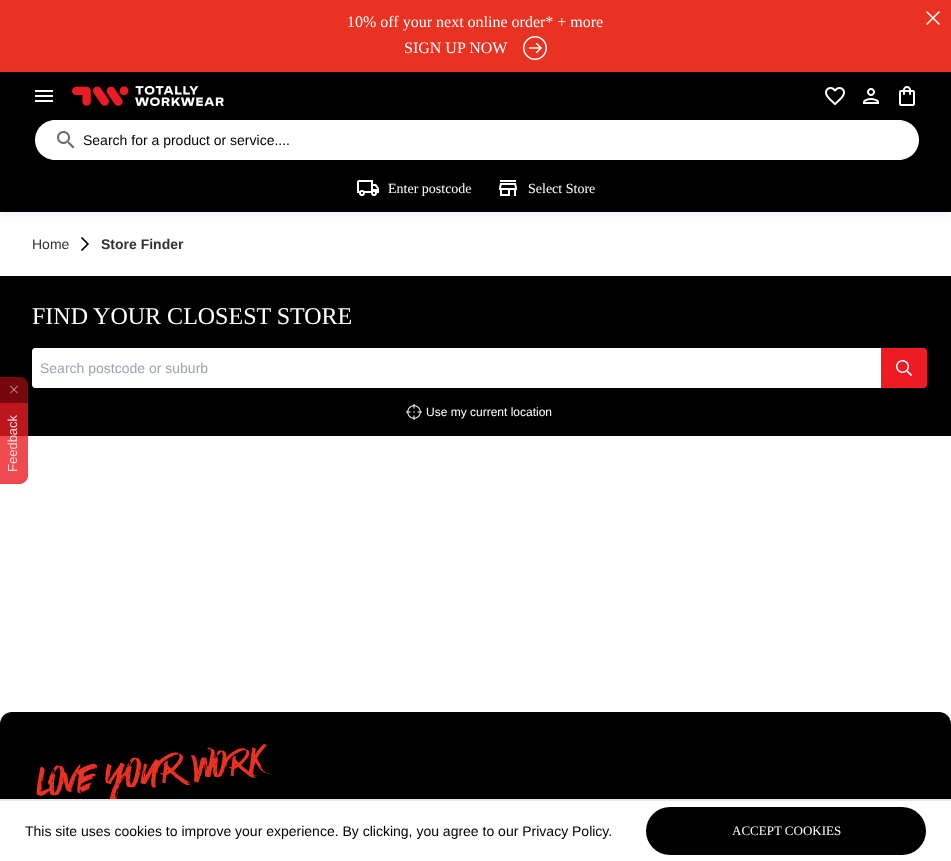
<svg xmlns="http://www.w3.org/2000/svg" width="951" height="861">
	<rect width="100%" height="100%" fill="#FFFFFF" />
	<rect x="0" y="0" width="951" height="72" fill="#EA3223" />
	<text x="347" y="27" font-family="Liberation Serif" font-size="16" fill="#FFFFFF">10% off your next online order* + more</text>
	<path d="M939 12L927 24M927 12L939 24" fill="none" stroke="#FFFFFF" stroke-width="1.5" stroke-linecap="round" stroke-linejoin="round" />
	<text x="404" y="53" font-family="Liberation Serif" font-size="16" fill="#FFFFFF">SIGN UP NOW</text>
	<image x="523" y="36" width="24" height="24" href="assets/img1.png" />
	<rect x="0" y="75" width="951" height="140" fill="#0E3870" fill-opacity="0.08" filter="blur(4px)" />
	<rect x="0" y="72" width="951" height="140" fill="#000000" />
	<image x="35" y="90" width="18" height="12" href="assets/img2.png" />
	<image x="72" y="86" width="152" height="20" href="assets/img3.png" />
	<image x="825" y="87" width="20" height="19" href="assets/img4.png" />
	<image x="863" y="88" width="16" height="16" href="assets/img5.png" />
	<image x="899" y="86" width="16" height="20" href="assets/img6.png" />
	<path d="M55 120H83V160H55C44 160 35 151 35 140C35 129 44 120 55 120Z" fill="#FFFFFF" />
	<image x="57" y="131" width="18" height="18" href="assets/img7.png" />
	<path d="M83 120H899C910 120 919 129 919 140C919 151 910 160 899 160H83Z" fill="#FFFFFF" />
	<text x="83" y="145" font-family="Liberation Sans" font-size="14" fill="#000000">Search for a product or service....</text>
	<image x="357" y="180" width="22" height="16" href="assets/img8.png" />
	<text x="388" y="193" font-family="Liberation Serif" font-size="14" fill="#FFFFFF">Enter postcode</text>
	<image x="499" y="180" width="18" height="16" href="assets/img9.png" />
	<text x="528" y="193" font-family="Liberation Serif" font-size="14" fill="#FFFFFF">Select Store</text>
	<text x="32" y="249" font-family="Liberation Sans" font-size="14" fill="#333333">Home</text>
	<image x="81" y="237" width="8" height="14" href="assets/img10.png" />
	<text x="101" y="249" font-family="Liberation Sans" font-size="14" font-weight="700" fill="#333333">Store Finder</text>
	<rect x="0" y="276" width="951" height="160" fill="#000000" />
	<text x="32" y="324" font-family="Liberation Serif" font-size="24" fill="#FFFFFF">FIND YOUR CLOSEST STORE</text>
	<path d="M35 348H881V388H35C33.5 388 32 386.5 32 385V351C32 349.5 33.5 348 35 348Z" fill="#FFFFFF" />
	<text x="40" y="373" font-family="Liberation Sans" font-size="14" fill="#9CA3AF">Search postcode or suburb</text>
	<path d="M881 348H924C925.5 348 927 349.5 927 351V385C927 386.5 925.5 388 924 388H881Z" fill="#ED1C24" />
	<image x="896" y="360" width="16" height="16" href="assets/img11.png" />
	<image x="406" y="404" width="16" height="16" href="assets/img12.png" />
	<text x="426" y="416" font-family="Liberation Sans" font-size="12" fill="#FFFFFF">Use my current location</text>
	<path d="M28 403H0V377H20C24.5 377 28 380.5 28 385Z" fill="#77060D" />
	<image x="10" y="385" width="8" height="9" href="assets/img13.png" />
	<path d="M20 484H0V403H28V476C28 480 24 484 20 484Z" fill="#ED1C24" fill-opacity="0.8" />
	<text x="17" y="472" transform="rotate(-90 17 472)" font-family="Liberation Sans" font-size="13" fill="#F8D7D8">Feedback</text>
	<path d="M12 712H939C945.5 712 951 717.5 951 724V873H0V724C0 717.5 5.5 712 12 712Z" fill="#000000" />
	<image x="36" y="744" width="234" height="55" href="assets/img14.png" />
	<rect x="0" y="801" width="951" height="60" fill="#FFFFFF" />
	<rect x="0" y="799" width="951" height="2" fill="#E5E7EB" />
	<text x="25" y="836" font-family="Liberation Sans" font-size="14" fill="#000000">This site uses cookies to improve your experience. By clicking, you agree to our Privacy Policy.</text>
	<rect x="646" y="807" width="280" height="48" rx="24" fill="#000000" />
	<text x="732" y="835" font-family="Liberation Serif" font-size="13" fill="#FFFFFF">ACCEPT COOKIES</text>
</svg>
